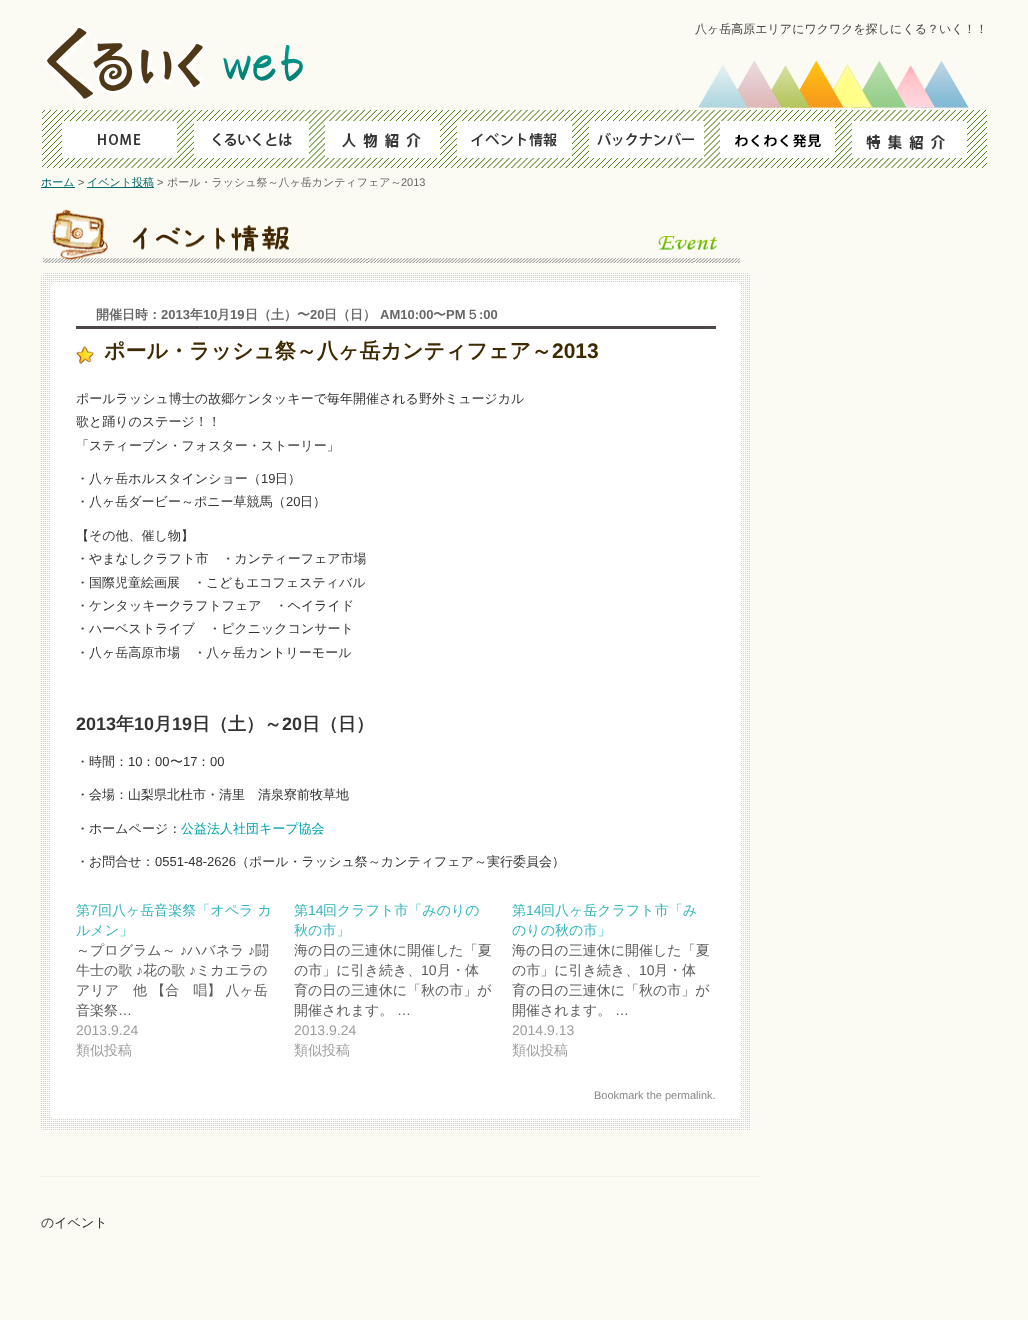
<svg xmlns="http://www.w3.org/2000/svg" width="1028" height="1320">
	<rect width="100%" height="100%" fill="#FBFAF3" />
	<image x="698" y="60" width="271" height="48" href="assets/img1.png" />
	<image x="44" y="25" width="259" height="78" href="assets/img2.png" />
	<text x="695" y="33" font-family="WenQuanYi Zen Hei" font-size="12" font-weight="500" fill="#444444">八ヶ岳高原エリアにワクワクを探しにくる？いく！！</text>
	<image x="42" y="110" width="135" height="58" href="assets/img3.png" />
	<image x="177" y="110" width="135" height="58" href="assets/img4.png" />
	<image x="312" y="110" width="135" height="58" href="assets/img5.png" />
	<image x="447" y="110" width="135" height="58" href="assets/img6.png" />
	<image x="582" y="110" width="135" height="58" href="assets/img7.png" />
	<image x="717" y="110" width="135" height="58" href="assets/img8.png" />
	<image x="852" y="110" width="135" height="58" href="assets/img9.png" />
	<rect x="41" y="187" width="34" height="1" fill="#006A6C" />
	<text x="41" y="186" font-family="WenQuanYi Zen Hei" font-size="11" font-weight="500" fill="#006A6C">ホーム</text>
	<text x="78" y="186" font-family="Liberation Sans" font-size="11" fill="#666666">&gt;</text>
	<rect x="87" y="187" width="67" height="1" fill="#006A6C" />
	<text x="87" y="186" font-family="WenQuanYi Zen Hei" font-size="11" font-weight="500" fill="#006A6C">イベント投稿</text>
	<text x="157" y="186" font-family="Liberation Sans" font-size="11" fill="#666666">&gt;</text>
	<text x="167" y="186" font-family="WenQuanYi Zen Hei" font-size="11" font-weight="500" fill="#666666">ポール・ラッシュ祭～八ヶ岳カンティフェア～</text>
	<text x="401" y="186" font-family="Liberation Sans" font-size="11" fill="#666666">2013</text>
	<path d="M41 1176.5H761" fill="none" stroke="#E7E7E7" stroke-dasharray="1 1" />
	<image x="43" y="209" width="697" height="54" href="assets/img10.png" />
	<image x="41" y="273" width="710" height="858" href="assets/img11.png" />
	<rect x="51" y="283" width="690" height="836" rx="4" fill="#FFFFFF" />
	<rect x="76" y="326" width="640" height="3" fill="#4E454A" />
	<text x="96" y="319" font-family="WenQuanYi Zen Hei" font-size="13" font-weight="700" fill="#666666">開催日時：</text>
	<text x="161" y="319" font-family="Liberation Sans" font-size="13" font-weight="700" fill="#666666">2013</text>
	<text x="190" y="319" font-family="WenQuanYi Zen Hei" font-size="13" font-weight="700" fill="#666666">年</text>
	<text x="203" y="319" font-family="Liberation Sans" font-size="13" font-weight="700" fill="#666666">10</text>
	<text x="217" y="319" font-family="WenQuanYi Zen Hei" font-size="13" font-weight="700" fill="#666666">月</text>
	<text x="230" y="319" font-family="Liberation Sans" font-size="13" font-weight="700" fill="#666666">19</text>
	<text x="245" y="319" font-family="WenQuanYi Zen Hei" font-size="13" font-weight="700" fill="#666666">日（土）〜</text>
	<text x="310" y="319" font-family="Liberation Sans" font-size="13" font-weight="700" fill="#666666">20</text>
	<text x="324" y="319" font-family="WenQuanYi Zen Hei" font-size="13" font-weight="700" fill="#666666">日（日）</text>
	<text x="380" y="319" font-family="Liberation Sans" font-size="13" font-weight="700" fill="#666666">AM10:00</text>
	<text x="433" y="319" font-family="WenQuanYi Zen Hei" font-size="13" font-weight="700" fill="#666666">〜</text>
	<text x="446" y="319" font-family="Liberation Sans" font-size="13" font-weight="700" fill="#666666">PM</text>
	<text x="466" y="319" font-family="WenQuanYi Zen Hei" font-size="13" font-weight="700" fill="#666666">５</text>
	<text x="479" y="319" font-family="Liberation Sans" font-size="13" font-weight="700" fill="#666666">:00</text>
	<image x="76" y="346" width="18" height="18" href="assets/img12.png" />
	<text x="104" y="358" font-family="WenQuanYi Zen Hei" font-size="21" font-weight="700" fill="#3E2A00">ポール・ラッシュ祭～八ヶ岳カンティフェア～</text>
	<text x="552" y="358" font-family="Liberation Sans" font-size="21" font-weight="700" fill="#3E2A00">2013</text>
	<g font-family="WenQuanYi Zen Hei" font-size="13" font-weight="500" fill="#333333">
		<text x="76" y="403">ポールラッシュ博士の故郷ケンタッキーで毎年開催される野外ミュージカル</text>
		<text x="76" y="426">歌と踊りのステージ！！</text>
		<text x="76" y="450">「スティーブン・フォスター・ストーリー」</text>
		<text x="76" y="483">・八ヶ岳ホルスタインショー（</text>
	</g>
	<text x="261" y="483" font-family="Liberation Sans" font-size="13" fill="#333333">19</text>
	<g font-family="WenQuanYi Zen Hei" font-size="13" font-weight="500" fill="#333333">
		<text x="275" y="483">日）</text>
		<text x="76" y="506">・八ヶ岳ダービー～ポニー草競馬（</text>
	</g>
	<text x="286" y="506" font-family="Liberation Sans" font-size="13" fill="#333333">20</text>
	<g font-family="WenQuanYi Zen Hei" font-size="13" font-weight="500" fill="#333333">
		<text x="300" y="506">日）</text>
		<text x="76" y="540">【その他、催し物】</text>
		<text x="76" y="563">・やまなしクラフト市　・カンティーフェア市場</text>
		<text x="76" y="587">・国際児童絵画展　・こどもエコフェスティバル</text>
		<text x="76" y="610">・ケンタッキークラフトフェア　・ヘイライド</text>
		<text x="76" y="633">・ハーベストライブ　・ピクニックコンサート</text>
		<text x="76" y="657">・八ヶ岳高原市場　・八ヶ岳カントリーモール</text>
	</g>
	<text x="76" y="730" font-family="Liberation Sans" font-size="18" font-weight="700" fill="#333333">2013</text>
	<text x="116" y="730" font-family="WenQuanYi Zen Hei" font-size="18" font-weight="700" fill="#333333">年</text>
	<text x="134" y="730" font-family="Liberation Sans" font-size="18" font-weight="700" fill="#333333">10</text>
	<text x="154" y="730" font-family="WenQuanYi Zen Hei" font-size="18" font-weight="700" fill="#333333">月</text>
	<text x="172" y="730" font-family="Liberation Sans" font-size="18" font-weight="700" fill="#333333">19</text>
	<text x="192" y="730" font-family="WenQuanYi Zen Hei" font-size="18" font-weight="700" fill="#333333">日（土）～</text>
	<text x="282" y="730" font-family="Liberation Sans" font-size="18" font-weight="700" fill="#333333">20</text>
	<text x="302" y="730" font-family="WenQuanYi Zen Hei" font-size="18" font-weight="700" fill="#333333">日（日）</text>
	<text x="76" y="766" font-family="WenQuanYi Zen Hei" font-size="13" font-weight="500" fill="#333333">・時間：</text>
	<text x="128" y="766" font-family="Liberation Sans" font-size="13" fill="#333333">10</text>
	<text x="142" y="766" font-family="WenQuanYi Zen Hei" font-size="13" font-weight="500" fill="#333333">：</text>
	<text x="155" y="766" font-family="Liberation Sans" font-size="13" fill="#333333">00</text>
	<text x="170" y="766" font-family="WenQuanYi Zen Hei" font-size="13" font-weight="500" fill="#333333">〜</text>
	<text x="183" y="766" font-family="Liberation Sans" font-size="13" fill="#333333">17</text>
	<text x="197" y="766" font-family="WenQuanYi Zen Hei" font-size="13" font-weight="500" fill="#333333">：</text>
	<text x="210" y="766" font-family="Liberation Sans" font-size="13" fill="#333333">00</text>
	<g font-family="WenQuanYi Zen Hei" font-size="13" font-weight="500" fill="#333333">
		<text x="76" y="799">・会場：山梨県北杜市・清里　清泉寮前牧草地</text>
		<text x="76" y="833">・ホームページ：</text>
	</g>
	<text x="181" y="833" font-family="WenQuanYi Zen Hei" font-size="13" font-weight="500" fill="#00A3AF">公益法人社団キープ協会</text>
	<text x="76" y="866" font-family="WenQuanYi Zen Hei" font-size="13" font-weight="500" fill="#333333">・お問合せ：</text>
	<text x="155" y="866" font-family="Liberation Sans" font-size="13" fill="#333333">0551-48-2626</text>
	<text x="236" y="866" font-family="WenQuanYi Zen Hei" font-size="13" font-weight="500" fill="#333333">（ポール・ラッシュ祭～カンティフェア～実行委員会）</text>
	<text x="76" y="915" font-family="WenQuanYi Zen Hei" font-size="14" font-weight="500" fill="#33B5BF">第</text>
	<text x="90" y="915" font-family="Liberation Sans" font-size="14" fill="#33B5BF">7</text>
	<g font-family="WenQuanYi Zen Hei" font-size="14" font-weight="500" fill="#33B5BF">
		<text x="98" y="915">回八ヶ岳音楽祭「オペラ カ</text>
		<text x="76" y="935">ルメン」</text>
	</g>
	<text x="76" y="955" font-family="WenQuanYi Zen Hei" font-size="14" font-weight="500" fill="#5C5C5C">～プログラム～</text>
	<text x="180" y="955" font-family="Liberation Sans" font-size="14" fill="#5C5C5C">♪</text>
	<text x="187" y="955" font-family="WenQuanYi Zen Hei" font-size="14" font-weight="500" fill="#5C5C5C">ハバネラ</text>
	<text x="248" y="955" font-family="Liberation Sans" font-size="14" fill="#5C5C5C">♪</text>
	<g font-family="WenQuanYi Zen Hei" font-size="14" font-weight="500" fill="#5C5C5C">
		<text x="255" y="955">闘</text>
		<text x="76" y="975">牛士の歌</text>
	</g>
	<text x="136" y="975" font-family="Liberation Sans" font-size="14" fill="#5C5C5C">♪</text>
	<text x="143" y="975" font-family="WenQuanYi Zen Hei" font-size="14" font-weight="500" fill="#5C5C5C">花の歌</text>
	<text x="189" y="975" font-family="Liberation Sans" font-size="14" fill="#5C5C5C">♪</text>
	<g font-family="WenQuanYi Zen Hei" font-size="14" font-weight="500" fill="#5C5C5C">
		<text x="196" y="975">ミカエラの</text>
		<text x="76" y="995">アリア　他 【合　唱】 八ヶ岳</text>
		<text x="76" y="1015">音楽祭</text>
	</g>
	<text x="118" y="1015" font-family="Liberation Sans" font-size="14" fill="#5C5C5C">…</text>
	<text x="76" y="1035" font-family="Liberation Sans" font-size="14" fill="#9D9D9D">2013.9.24</text>
	<text x="76" y="1055" font-family="WenQuanYi Zen Hei" font-size="14" font-weight="500" fill="#9D9D9D">類似投稿</text>
	<text x="294" y="915" font-family="WenQuanYi Zen Hei" font-size="14" font-weight="500" fill="#33B5BF">第</text>
	<text x="308" y="915" font-family="Liberation Sans" font-size="14" fill="#33B5BF">14</text>
	<g font-family="WenQuanYi Zen Hei" font-size="14" font-weight="500" fill="#33B5BF">
		<text x="323" y="915">回クラフト市「みのりの</text>
		<text x="294" y="935">秋の市」</text>
	</g>
	<g font-family="WenQuanYi Zen Hei" font-size="14" font-weight="500" fill="#5C5C5C">
		<text x="294" y="955">海の日の三連休に開催した「夏</text>
		<text x="294" y="975">の市」に引き続き、</text>
	</g>
	<text x="421" y="975" font-family="Liberation Sans" font-size="14" fill="#5C5C5C">10</text>
	<g font-family="WenQuanYi Zen Hei" font-size="14" font-weight="500" fill="#5C5C5C">
		<text x="437" y="975">月・体</text>
		<text x="294" y="995">育の日の三連休に「秋の市」が</text>
		<text x="294" y="1015">開催されます。</text>
	</g>
	<text x="397" y="1015" font-family="Liberation Sans" font-size="14" fill="#5C5C5C">…</text>
	<text x="294" y="1035" font-family="Liberation Sans" font-size="14" fill="#9D9D9D">2013.9.24</text>
	<text x="294" y="1055" font-family="WenQuanYi Zen Hei" font-size="14" font-weight="500" fill="#9D9D9D">類似投稿</text>
	<text x="512" y="915" font-family="WenQuanYi Zen Hei" font-size="14" font-weight="500" fill="#33B5BF">第</text>
	<text x="526" y="915" font-family="Liberation Sans" font-size="14" fill="#33B5BF">14</text>
	<g font-family="WenQuanYi Zen Hei" font-size="14" font-weight="500" fill="#33B5BF">
		<text x="541" y="915">回八ヶ岳クラフト市「み</text>
		<text x="512" y="935">のりの秋の市」</text>
	</g>
	<g font-family="WenQuanYi Zen Hei" font-size="14" font-weight="500" fill="#5C5C5C">
		<text x="512" y="955">海の日の三連休に開催した「夏</text>
		<text x="512" y="975">の市」に引き続き、</text>
	</g>
	<text x="639" y="975" font-family="Liberation Sans" font-size="14" fill="#5C5C5C">10</text>
	<g font-family="WenQuanYi Zen Hei" font-size="14" font-weight="500" fill="#5C5C5C">
		<text x="654" y="975">月・体</text>
		<text x="512" y="995">育の日の三連休に「秋の市」が</text>
		<text x="512" y="1015">開催されます。</text>
	</g>
	<text x="615" y="1015" font-family="Liberation Sans" font-size="14" fill="#5C5C5C">…</text>
	<text x="512" y="1035" font-family="Liberation Sans" font-size="14" fill="#9D9D9D">2014.9.13</text>
	<text x="512" y="1055" font-family="WenQuanYi Zen Hei" font-size="14" font-weight="500" fill="#9D9D9D">類似投稿</text>
	<text x="594" y="1099" font-family="Liberation Sans" font-size="11" fill="#888888">Bookmark the permalink.</text>
	<text x="41" y="1227" font-family="WenQuanYi Zen Hei" font-size="13" font-weight="500" fill="#333333">のイベント</text>
</svg>
